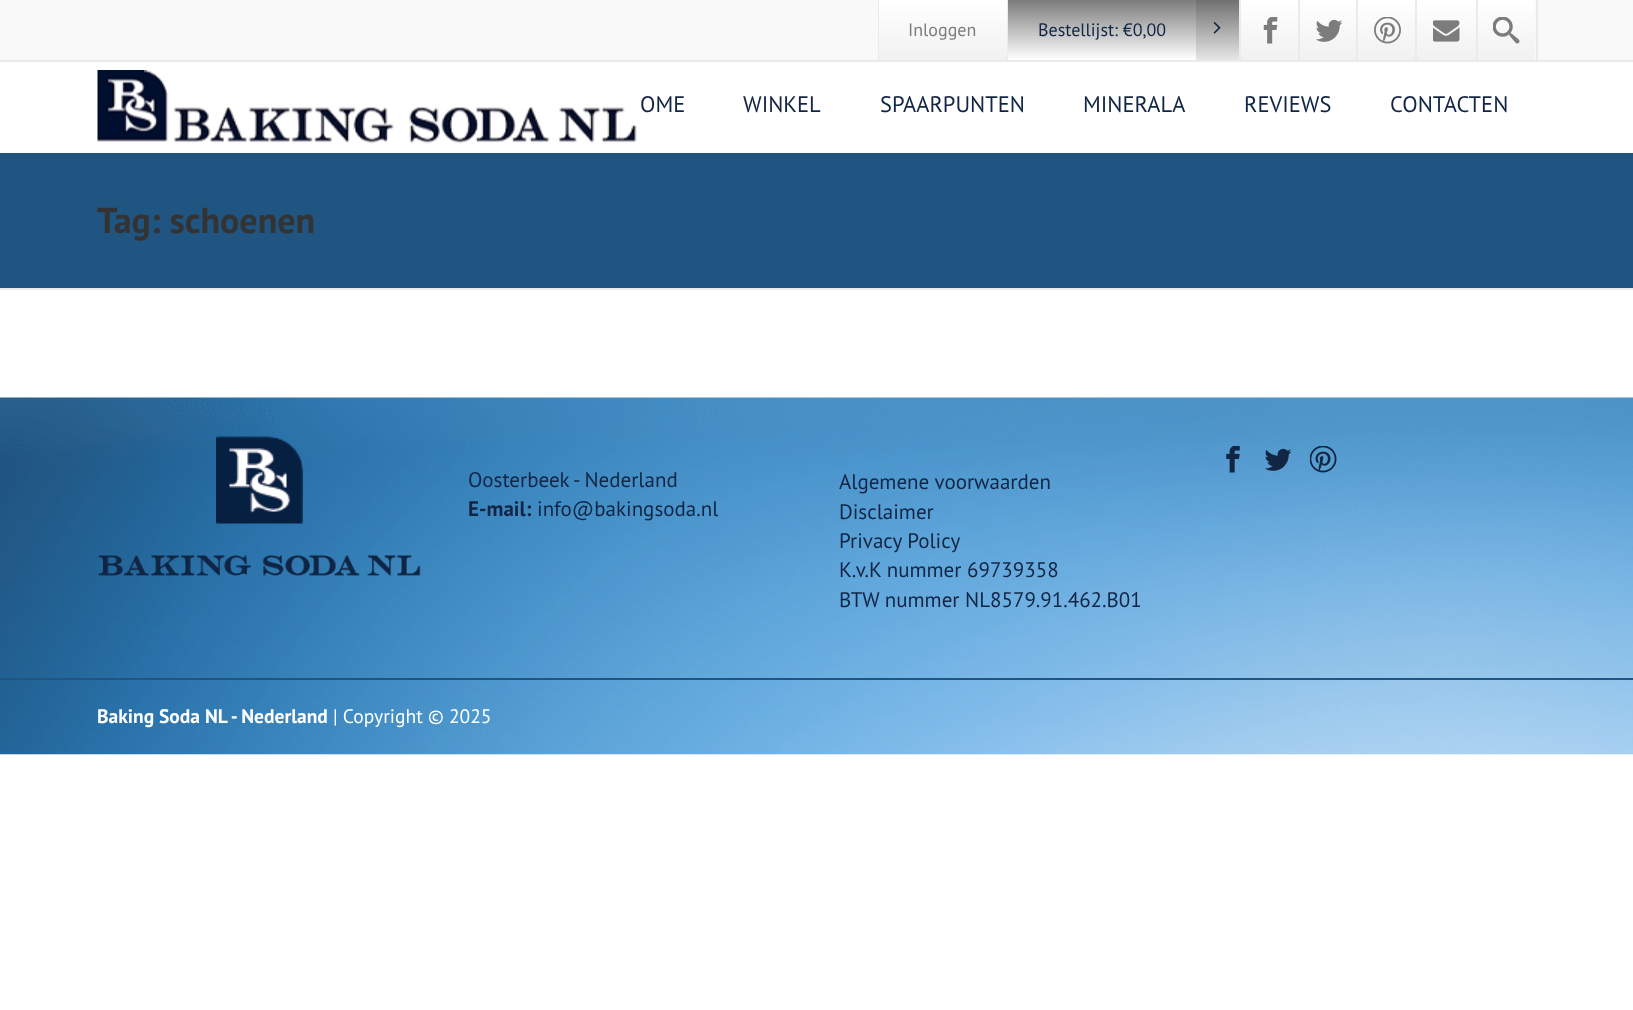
<svg xmlns="http://www.w3.org/2000/svg" width="1633" height="1010">
	<defs>
		<linearGradient id="g1" gradientUnits="userSpaceOnUse" x1="943" y1="0" x2="943" y2="60"><stop offset="0" stop-color="#FFFFFF" /><stop offset="1" stop-color="#F1F1F1" /></linearGradient>
		<linearGradient id="g2" gradientUnits="userSpaceOnUse" x1="1125" y1="0" x2="1125" y2="60"><stop offset="0" stop-color="#7C7C7C" /><stop offset="1" stop-color="#FFFFFF" /></linearGradient>
		<linearGradient id="g3" gradientUnits="userSpaceOnUse" x1="1125" y1="0" x2="1125" y2="60"><stop offset="0" stop-color="#707070" /><stop offset="1" stop-color="#E6E6E6" /></linearGradient>
		<linearGradient id="g4" gradientUnits="userSpaceOnUse" x1="1271" y1="0" x2="1271" y2="60"><stop offset="0" stop-color="#FFFFFF" /><stop offset="1" stop-color="#F1F1F1" /></linearGradient>
		<linearGradient id="g5" gradientUnits="userSpaceOnUse" x1="1329" y1="0" x2="1329" y2="60"><stop offset="0" stop-color="#FFFFFF" /><stop offset="1" stop-color="#F1F1F1" /></linearGradient>
		<linearGradient id="g6" gradientUnits="userSpaceOnUse" x1="1388" y1="0" x2="1388" y2="60"><stop offset="0" stop-color="#FFFFFF" /><stop offset="1" stop-color="#F1F1F1" /></linearGradient>
		<linearGradient id="g7" gradientUnits="userSpaceOnUse" x1="1446" y1="0" x2="1446" y2="60"><stop offset="0" stop-color="#FFFFFF" /><stop offset="1" stop-color="#F1F1F1" /></linearGradient>
		<linearGradient id="g8" gradientUnits="userSpaceOnUse" x1="1506" y1="0" x2="1506" y2="60"><stop offset="0" stop-color="#FFFFFF" /><stop offset="1" stop-color="#F1F1F1" /></linearGradient>
	</defs>
	<rect width="100%" height="100%" fill="#FFFFFF" />
	<rect x="0" y="0" width="1633" height="60" fill="#F9F9F9" />
	<rect x="0" y="60" width="1633" height="2" fill="#EBEBEB" />
	<rect x="1007" y="0" width="1" height="60" fill="#EBEBEB" />
	<rect x="878" y="0" width="1" height="60" fill="#EBEBEB" />
	<rect x="879" y="0" width="128" height="60" fill="url(#g1)" />
	<text x="908" y="36" font-family="PT Sans" font-size="18" fill="#7C7C7C">Inloggen</text>
	<rect x="1008" y="0" width="188" height="60" fill="url(#g2)" />
	<rect x="1196" y="0" width="43" height="60" fill="url(#g3)" />
	<text x="1038" y="36" font-family="PT Sans" font-size="18" fill="#122544">Bestellijst: €0,00</text>
	<image x="1213" y="22" width="8" height="12" href="assets/img1.png" />
	<rect x="1241" y="0" width="57" height="60" fill="url(#g4)" />
	<rect x="1239" y="0" width="2" height="60" fill="#EBEBEB" />
	<image x="1263" y="17" width="15" height="27" href="assets/img2.png" />
	<rect x="1300" y="0" width="56" height="60" fill="url(#g5)" />
	<rect x="1298" y="0" width="2" height="60" fill="#EBEBEB" />
	<image x="1316" y="19" width="27" height="23" href="assets/img3.png" />
	<rect x="1358" y="0" width="57" height="60" fill="url(#g6)" />
	<rect x="1356" y="0" width="2" height="60" fill="#EBEBEB" />
	<image x="1374" y="17" width="27" height="27" href="assets/img4.png" />
	<rect x="1417" y="0" width="59" height="60" fill="url(#g7)" />
	<rect x="1476" y="0" width="2" height="60" fill="#EBEBEB" />
	<rect x="1415" y="0" width="2" height="60" fill="#EBEBEB" />
	<image x="1433" y="20" width="27" height="22" href="assets/img5.png" />
	<rect x="1536" y="0" width="2" height="60" fill="#EBEBEB" />
	<rect x="1478" y="0" width="57" height="60" fill="url(#g8)" />
	<image x="1493" y="17" width="27" height="27" href="assets/img6.png" />
	<image x="97" y="70" width="541" height="74" href="assets/img7.png" />
	<g font-family="PT Sans" font-size="22.5" fill="#122544">
		<text x="640" y="112">OME</text>
		<text x="743" y="112">WINKEL</text>
		<text x="880" y="112">SPAARPUNTEN</text>
		<text x="1083" y="112">MINERALA</text>
		<text x="1244" y="112">REVIEWS</text>
		<text x="1390" y="112">CONTACTEN</text>
	</g>
	<rect x="0" y="153" width="1633" height="135" fill="#205581" />
	<rect x="0" y="288" width="1633" height="2" fill="#EBEBEB" />
	<text x="97" y="233" font-family="PT Sans" font-size="36" font-weight="700" fill="#333333">Tag: schoenen</text>
	<rect x="0" y="754" width="1633" height="1" fill="#F9F9F9" />
	<image x="0" y="397" width="1633" height="358" href="assets/img8.png" />
	<image x="216" y="436" width="87" height="88" href="assets/img9.png" />
	<image x="98" y="555" width="323" height="21" href="assets/img10.png" />
	<image x="1226" y="446" width="14" height="27" href="assets/img11.png" />
	<image x="1265" y="448" width="27" height="23" href="assets/img12.png" />
	<image x="1310" y="446" width="27" height="27" href="assets/img13.png" />
	<text x="468" y="487" font-family="PT Sans" font-size="21" fill="#122544">Oosterbeek - Nederland</text>
	<text x="468" y="516" font-family="PT Sans" font-size="21" font-weight="700" fill="#122544">E-mail:</text>
	<g font-family="PT Sans" font-size="21" fill="#122544">
		<text x="537" y="516">info@bakingsoda.nl</text>
		<text x="839" y="489">Algemene voorwaarden</text>
		<text x="839" y="519">Disclaimer</text>
		<text x="839" y="548">Privacy Policy</text>
		<text x="839" y="577">K.v.K nummer 69739358</text>
		<text x="839" y="607">BTW nummer NL8579.91.462.B01</text>
	</g>
	<rect x="0" y="678" width="1633" height="2" fill="#205581" />
	<text x="97" y="723" font-family="PT Sans" font-size="19.5" font-weight="700" fill="#FFFFFF">Baking Soda NL - Nederland</text>
	<text x="333" y="723" font-family="PT Sans" font-size="19.5" fill="#FFFFFF">| Copyright © 2025</text>
</svg>
